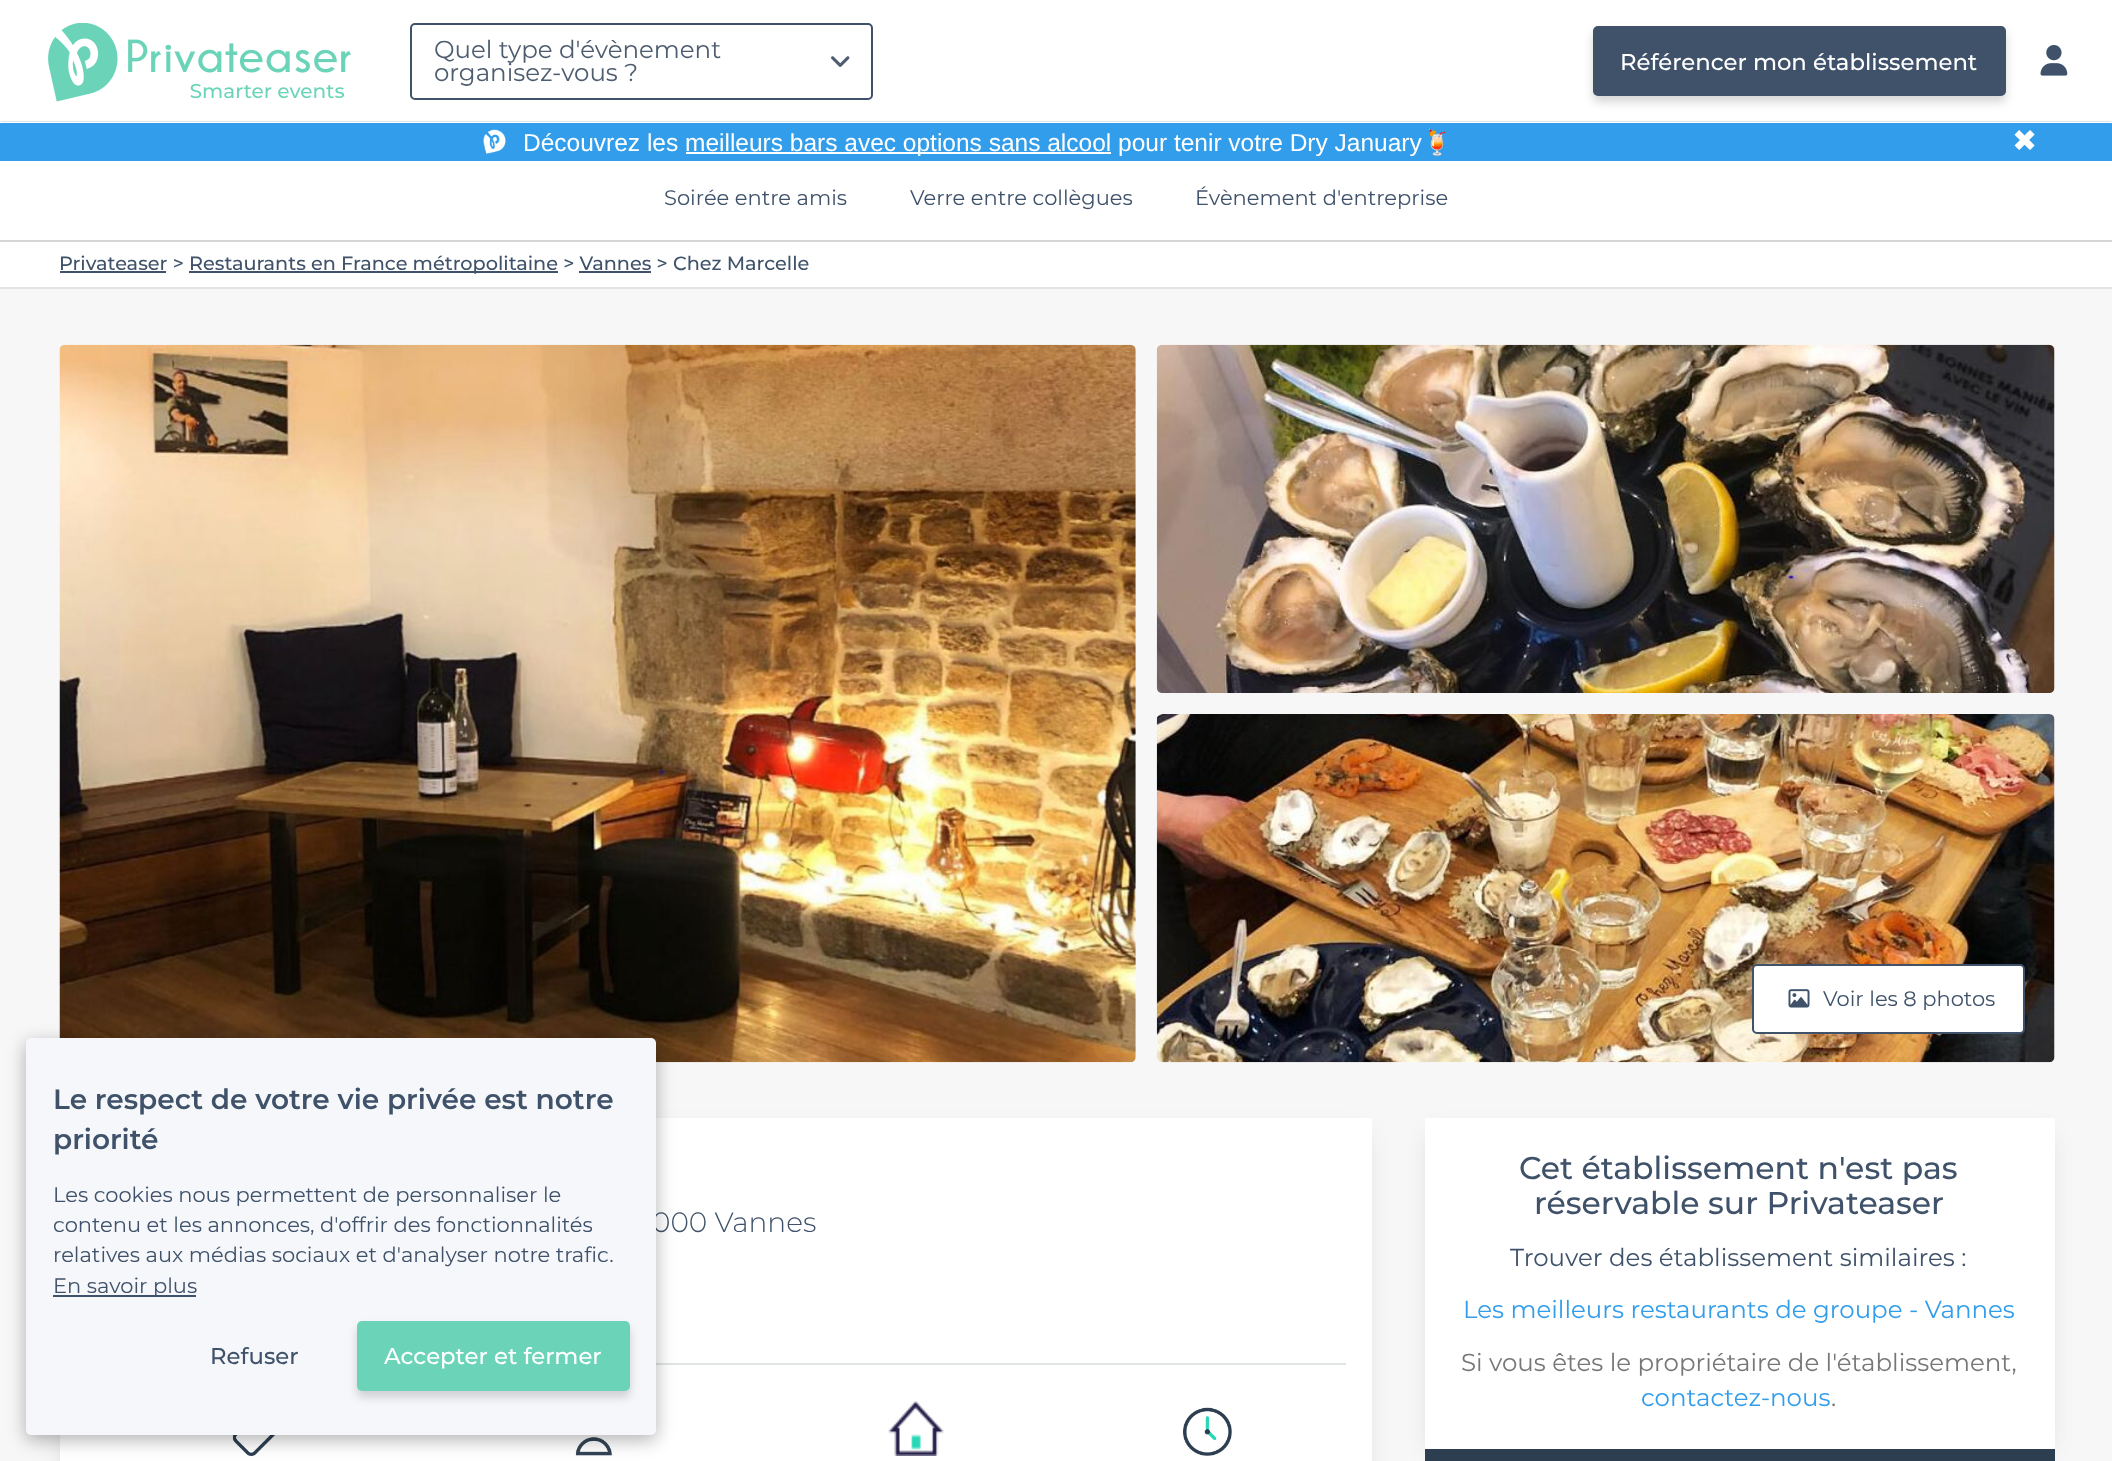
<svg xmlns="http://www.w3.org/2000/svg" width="2112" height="1461">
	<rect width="100%" height="100%" fill="#FFFFFF" />
	<path d="M2112 122H0L2 121H2110Z" fill="#E1E4E4" />
	<image x="48" y="23" width="303" height="79" href="assets/img1.png" />
	<rect x="411" y="24" width="461" height="75" rx="4" fill="none" stroke="#3F526A" stroke-width="2" />
	<g font-family="Montserrat" font-size="24.5" fill="#4D5C6E">
		<text x="434" y="58">Quel type d'évènement</text>
		<text x="434" y="81">organisez-vous ?</text>
	</g>
	<image x="831" y="56" width="19" height="11" href="assets/img2.png" />
	<rect x="1593" y="32" width="413" height="70" rx="5" fill="#000000" fill-opacity="0.16" filter="blur(5px)" />
	<rect x="1593" y="26" width="413" height="70" rx="5" fill="#3F526A" />
	<text x="1620" y="70" font-family="Montserrat" font-size="22.75" font-weight="500" fill="#FFFFFF">Référencer mon établissement</text>
	<image x="2040" y="45" width="28" height="31" href="assets/img3.png" />
	<rect x="0" y="289" width="2112" height="1172" fill="#F7F7F7" />
	<rect x="0" y="123" width="2112" height="38" fill="#329DEA" />
	<image x="483" y="129" width="23" height="25" href="assets/img4.png" />
	<text x="523" y="151" font-family="Liberation Sans" font-size="24.5" fill="#FFFFFF">Découvrez les</text>
	<rect x="686" y="152" width="425" height="2" fill="#FFFFFF" />
	<text x="685" y="151" font-family="Liberation Sans" font-size="24.5" fill="#FFFFFF">meilleurs bars avec options sans alcool pour tenir votre Dry January</text>
	<text x="1422" y="151" font-family="Noto Color Emoji" font-size="24.5" fill="#FFFFFF">🍹</text>
	<text x="2012" y="151" font-family="DejaVu Sans" font-size="30" fill="#FFFFFF">✖</text>
	<rect x="0" y="240" width="2112" height="2" fill="#D6D6D6" />
	<g font-family="Montserrat" font-size="21" fill="#3F526A">
		<text x="664" y="205">Soirée entre amis</text>
		<text x="910" y="205">Verre entre collègues</text>
		<text x="1195" y="205">Évènement d'entreprise</text>
	</g>
	<rect x="0" y="287" width="2112" height="2" fill="#E1E4E4" />
	<text x="59" y="270" font-family="Montserrat" font-size="19.25" font-weight="500" fill="#3F526A">Privateaser &gt;</text>
	<rect x="60" y="271" width="106" height="2" fill="#3F526A" />
	<rect x="189" y="271" width="369" height="2" fill="#3F526A" />
	<text x="189" y="270" font-family="Montserrat" font-size="19.25" font-weight="500" fill="#3F526A">Restaurants en France métropolitaine &gt; Vannes &gt; Chez Marcelle</text>
	<rect x="579" y="271" width="72" height="2" fill="#3F526A" />
	<image x="59" y="344" width="1077" height="719" href="assets/img5.png" />
	<image x="1156" y="344" width="899" height="349" href="assets/img6.png" />
	<image x="1156" y="714" width="899" height="349" href="assets/img7.png" />
	<rect x="1753" y="965" width="271" height="68" rx="4" fill="#FFFFFF" stroke="#3F526A" stroke-width="2" />
	<image x="1788" y="989" width="22" height="19" href="assets/img8.png" />
	<text x="1823" y="1006" font-family="Montserrat" font-size="21" fill="#3F526A">Voir les 8 photos</text>
	<rect x="68" y="1136" width="1295" height="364" fill="#000000" fill-opacity="0.15" filter="blur(13px)" />
	<rect x="60" y="1118" width="1312" height="343" fill="#FFFFFF" />
	<text x="652" y="1232" font-family="Montserrat" font-size="28" font-weight="300" fill="#3F526A">000 Vannes</text>
	<rect x="656" y="1363" width="690" height="2" fill="#E1E4E4" />
	<image x="232" y="1435" width="52" height="21" href="assets/img9.png" />
	<image x="575" y="1435" width="37" height="21" href="assets/img10.png" />
	<image x="888" y="1401" width="56" height="55" href="assets/img11.png" />
	<image x="1183" y="1407" width="49" height="49" href="assets/img12.png" />
	<rect x="1433" y="1136" width="613" height="313" fill="#000000" fill-opacity="0.15" filter="blur(13px)" />
	<rect x="1425" y="1118" width="630" height="331" fill="#FFFFFF" />
	<g font-family="Montserrat" font-size="31.5" font-weight="500" fill="#3F526A">
		<text x="1519" y="1179">Cet établissement n'est pas</text>
		<text x="1534" y="1214">réservable sur Privateaser</text>
	</g>
	<text x="1510" y="1266" font-family="Montserrat" font-size="24.5" fill="#3F526A">Trouver des établissement similaires :</text>
	<text x="1463" y="1318" font-family="Montserrat" font-size="24.5" fill="#329DEA">Les meilleurs restaurants de groupe - Vannes</text>
	<text x="1461" y="1371" font-family="Montserrat" font-size="24.5" fill="#777777">Si vous êtes le propriétaire de l'établissement,</text>
	<text x="1641" y="1406" font-family="Montserrat" font-size="24.5" fill="#329DEA">contactez-nous</text>
	<text x="1831" y="1406" font-family="Montserrat" font-size="24.5" fill="#777777">.</text>
	<rect x="1425" y="1449" width="630" height="12" fill="#2C3E50" />
	<rect x="26" y="1043" width="630" height="397" rx="5" fill="#000000" fill-opacity="0.3" filter="blur(9px)" />
	<rect x="26" y="1038" width="630" height="397" rx="5" fill="#F6F7FB" />
	<g font-family="Montserrat" font-size="28" font-weight="600" fill="#3F526A">
		<text x="53" y="1109">Le respect de votre vie privée est notre</text>
		<text x="53" y="1149">priorité</text>
	</g>
	<g font-family="Montserrat" font-size="21" fill="#3F526A">
		<text x="53" y="1202">Les cookies nous permettent de personnaliser le</text>
		<text x="53" y="1232">contenu et les annonces, d'offrir des fonctionnalités</text>
		<text x="53" y="1262">relatives aux médias sociaux et d'analyser notre trafic.</text>
	</g>
	<rect x="53" y="1295" width="143" height="2" fill="#3F526A" />
	<text x="53" y="1293" font-family="Montserrat" font-size="21" fill="#3F526A">En savoir plus</text>
	<text x="210" y="1364" font-family="Montserrat" font-size="22.75" font-weight="500" fill="#3F526A">Refuser</text>
	<rect x="357" y="1327" width="273" height="70" rx="5" fill="#000000" fill-opacity="0.16" filter="blur(5px)" />
	<rect x="357" y="1321" width="273" height="70" rx="5" fill="#6BD4B8" />
	<text x="384" y="1364" font-family="Montserrat" font-size="22.75" font-weight="500" fill="#FFFFFF">Accepter et fermer</text>
</svg>
